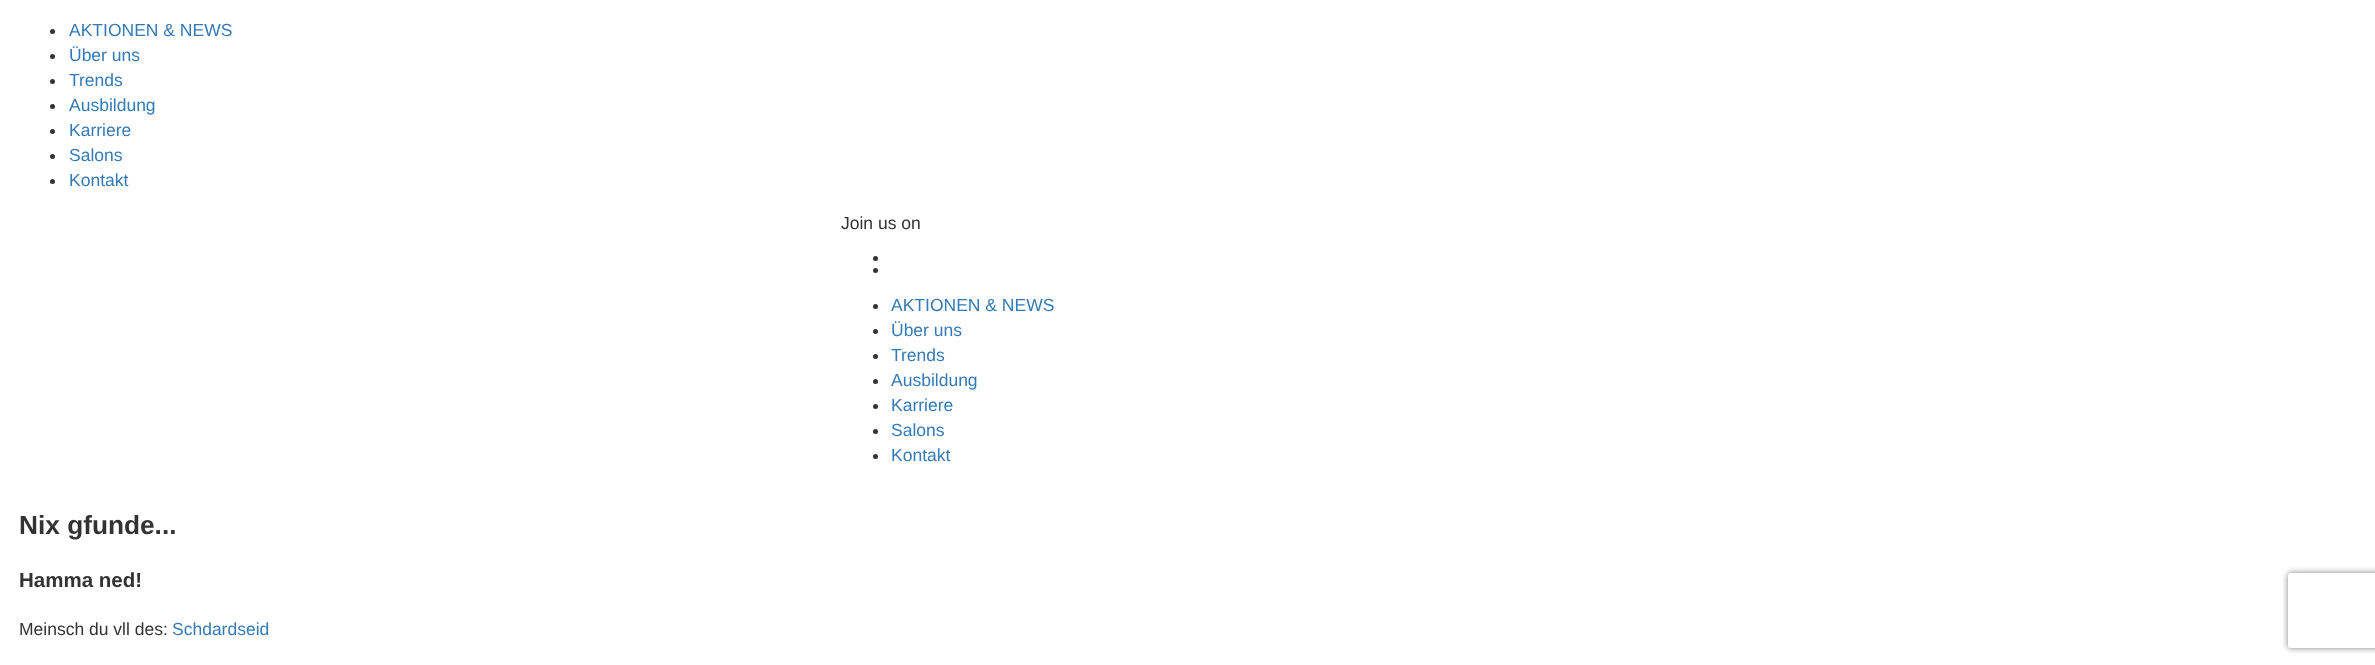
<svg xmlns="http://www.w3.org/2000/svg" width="2375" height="665">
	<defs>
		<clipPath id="clip1"><path d="M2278 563H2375V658H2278ZM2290.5 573H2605.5C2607 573 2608 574 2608 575.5V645.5C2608 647 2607 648 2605.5 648H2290.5C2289 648 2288 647 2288 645.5V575.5C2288 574 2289 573 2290.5 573Z" clip-rule="evenodd" /></clipPath>
	</defs>
	<rect width="100%" height="100%" fill="#FFFFFF" />
	<circle cx="52.5" cy="31.5" r="2.5" fill="#333333" />
	<text x="69" y="36" font-family="Liberation Sans" font-size="17.5" fill="#337AB7">AKTIONEN &amp; NEWS</text>
	<circle cx="52.5" cy="56.5" r="2.5" fill="#333333" />
	<text x="69" y="61" font-family="Liberation Sans" font-size="17.5" fill="#337AB7">Über uns</text>
	<circle cx="52.5" cy="81.5" r="2.5" fill="#333333" />
	<text x="69" y="86" font-family="Liberation Sans" font-size="17.5" fill="#337AB7">Trends</text>
	<circle cx="52.5" cy="106.5" r="2.5" fill="#333333" />
	<text x="69" y="111" font-family="Liberation Sans" font-size="17.5" fill="#337AB7">Ausbildung</text>
	<circle cx="52.5" cy="131.5" r="2.5" fill="#333333" />
	<text x="69" y="136" font-family="Liberation Sans" font-size="17.5" fill="#337AB7">Karriere</text>
	<circle cx="52.5" cy="156.5" r="2.5" fill="#333333" />
	<text x="69" y="161" font-family="Liberation Sans" font-size="17.5" fill="#337AB7">Salons</text>
	<circle cx="52.5" cy="181.5" r="2.5" fill="#333333" />
	<text x="69" y="186" font-family="Liberation Sans" font-size="17.5" fill="#337AB7">Kontakt</text>
	<text x="841" y="229" font-family="Liberation Sans" font-size="17.5" fill="#333333">Join us on</text>
	<circle cx="875.5" cy="258.5" r="2.5" fill="#333333" />
	<circle cx="875.5" cy="270.5" r="2.5" fill="#333333" />
	<circle cx="875.5" cy="306.5" r="2.5" fill="#333333" />
	<text x="891" y="311" font-family="Liberation Sans" font-size="17.5" fill="#337AB7">AKTIONEN &amp; NEWS</text>
	<circle cx="875.5" cy="331.5" r="2.5" fill="#333333" />
	<text x="891" y="336" font-family="Liberation Sans" font-size="17.5" fill="#337AB7">Über uns</text>
	<circle cx="875.5" cy="356.5" r="2.5" fill="#333333" />
	<text x="891" y="361" font-family="Liberation Sans" font-size="17.5" fill="#337AB7">Trends</text>
	<circle cx="875.5" cy="381.5" r="2.5" fill="#333333" />
	<text x="891" y="386" font-family="Liberation Sans" font-size="17.5" fill="#337AB7">Ausbildung</text>
	<circle cx="875.5" cy="406.5" r="2.5" fill="#333333" />
	<text x="891" y="411" font-family="Liberation Sans" font-size="17.5" fill="#337AB7">Karriere</text>
	<circle cx="875.5" cy="431.5" r="2.5" fill="#333333" />
	<text x="891" y="436" font-family="Liberation Sans" font-size="17.5" fill="#337AB7">Salons</text>
	<circle cx="875.5" cy="456.5" r="2.5" fill="#333333" />
	<text x="891" y="461" font-family="Liberation Sans" font-size="17.5" fill="#337AB7">Kontakt</text>
	<text x="19" y="534" font-family="Liberation Sans" font-size="26.25" font-weight="700" fill="#333333">Nix gfunde...</text>
	<text x="19" y="587" font-family="Liberation Sans" font-size="20.5" font-weight="700" fill="#333333">Hamma ned!</text>
	<text x="19" y="635" font-family="Liberation Sans" font-size="17.5" fill="#333333">Meinsch du vll des:</text>
	<text x="172" y="635" font-family="Liberation Sans" font-size="17.5" fill="#337AB7">Schdardseid</text>
	<g clip-path="url(#clip1)">
		<rect x="2288" y="573" width="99" height="75" rx="2.5" fill="#808080" filter="blur(3px)" />
	</g>
</svg>
